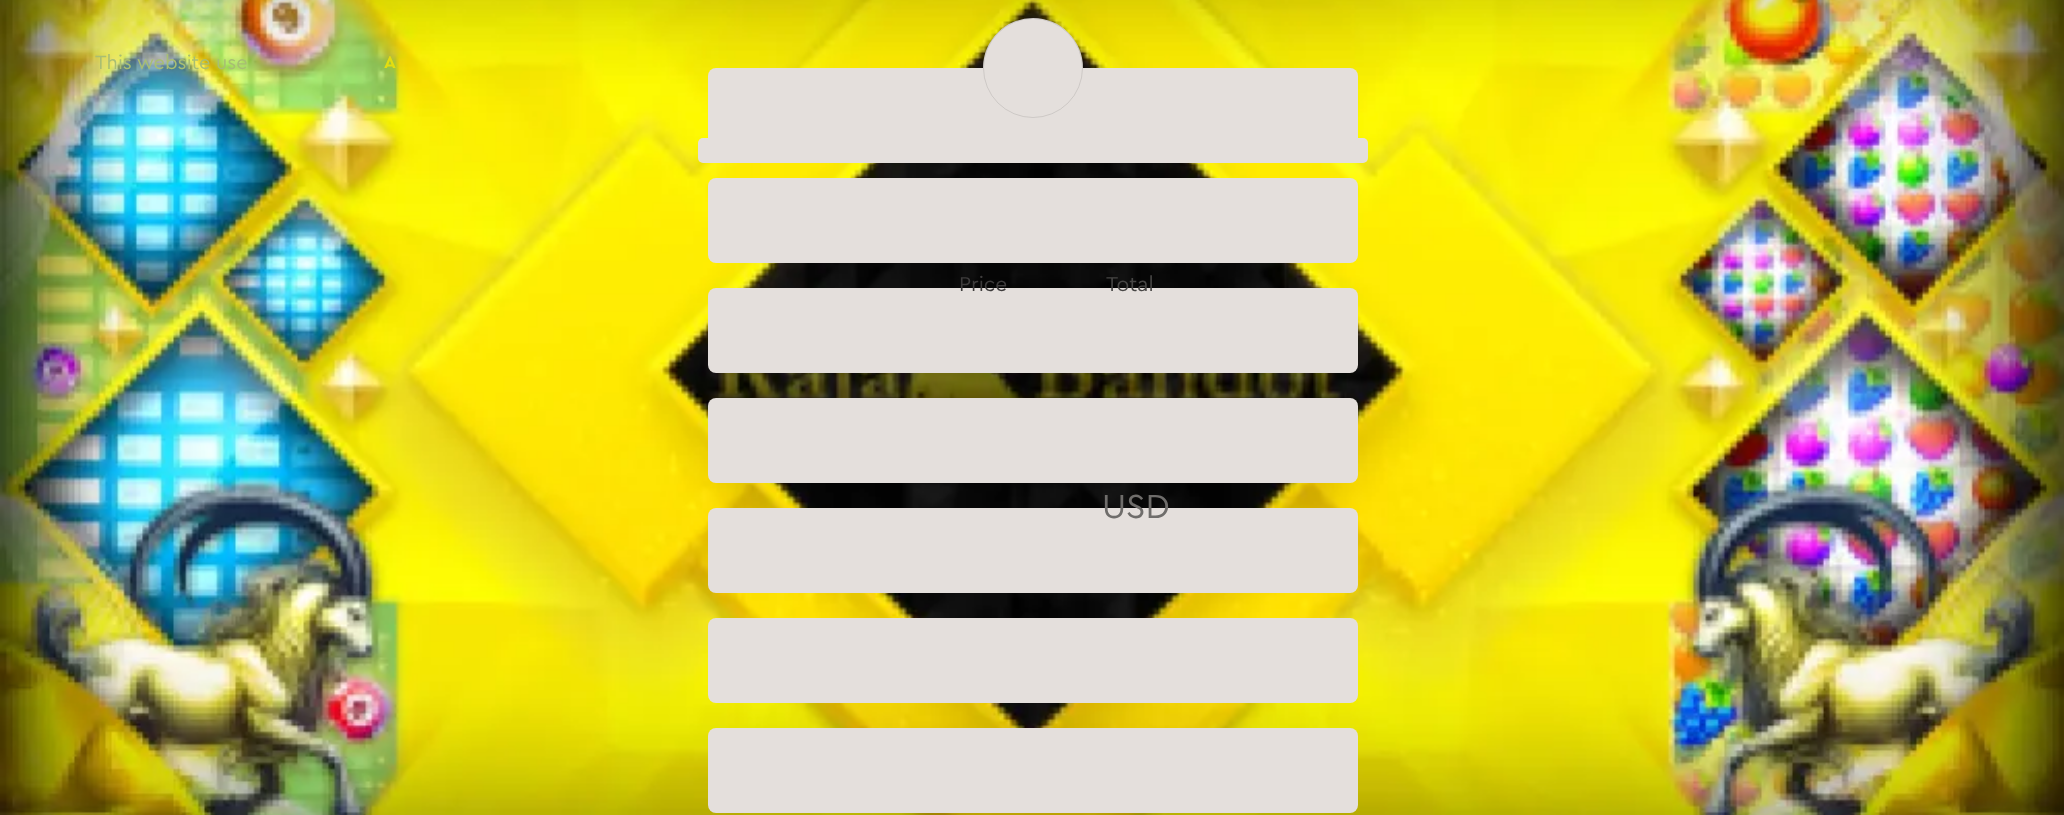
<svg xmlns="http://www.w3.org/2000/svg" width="2064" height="815">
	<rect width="100%" height="100%" fill="#FFFFFF" />
	<image x="0" y="0" width="2064" height="815" href="assets/img1.png" />
	<text x="95" y="69" font-family="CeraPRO" font-size="20" fill="#A8BE73">This website use</text>
	<text x="384" y="68" font-family="'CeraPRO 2'" font-size="18" fill="#E4DD0F">A</text>
	<rect x="708" y="68" width="650" height="85" rx="8" fill="#E4DFDC" />
	<circle cx="1033" cy="68" r="50" fill="#E4DFDC" />
	<circle cx="1033" cy="68" r="49.5" fill="none" stroke="#000000" stroke-opacity="0.1" />
	<rect x="698" y="138" width="670" height="25" rx="5" fill="#E4DFDC" />
	<rect x="708" y="178" width="650" height="85" rx="8" fill="#E4DFDC" />
	<rect x="708" y="288" width="650" height="85" rx="8" fill="#E4DFDC" />
	<rect x="708" y="398" width="650" height="85" rx="8" fill="#E4DFDC" />
	<rect x="708" y="508" width="650" height="85" rx="8" fill="#E4DFDC" />
	<rect x="708" y="618" width="650" height="85" rx="8" fill="#E4DFDC" />
	<rect x="708" y="728" width="650" height="85" rx="8" fill="#E4DFDC" />
	<text x="959" y="291" font-family="CeraPRO" font-size="21" fill="#3E3C3C">Price</text>
	<text x="1106" y="291" font-family="CeraPRO" font-size="21" fill="#474645">Total</text>
	<text x="1102" y="518" font-family="CeraPRO" font-size="35" fill="#6F6D6B">USD</text>
</svg>
